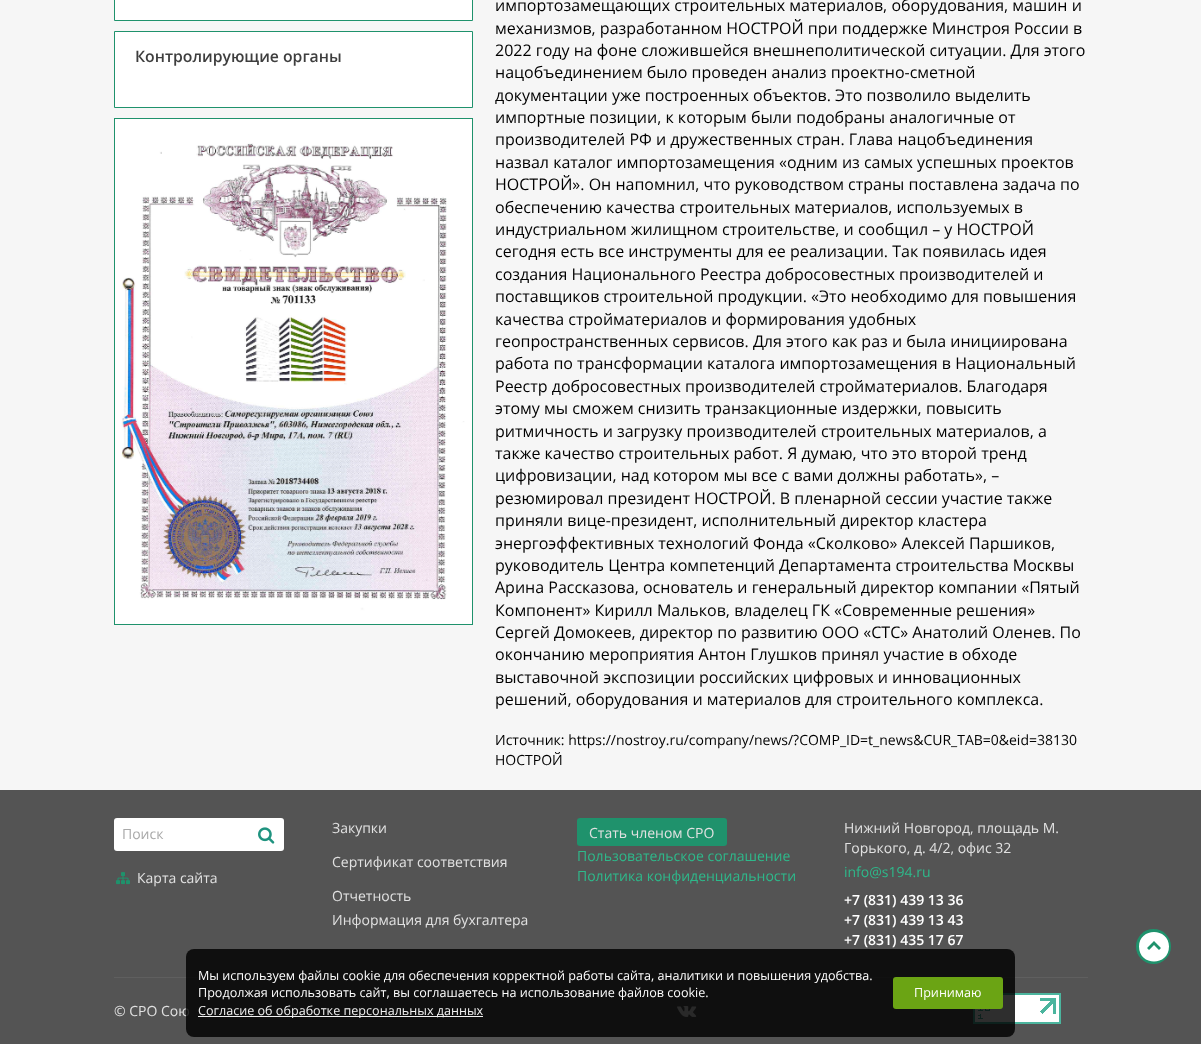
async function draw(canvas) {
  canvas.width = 1201
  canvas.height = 1044
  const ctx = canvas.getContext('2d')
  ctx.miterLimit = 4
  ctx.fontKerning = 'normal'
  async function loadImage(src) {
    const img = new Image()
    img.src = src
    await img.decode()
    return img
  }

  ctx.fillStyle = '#545454'
  ctx.fillRect(0, 0, 1201, 1044)
  ctx.fillStyle = '#f6f6f6'
  ctx.fillRect(0, 0, 1201, 790)
  ctx.fillStyle = '#fff'
  ctx.beginPath()
  ctx.rect(114.5, -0.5, 358, 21)
  ctx.fill()
  ctx.strokeStyle = '#1f926c'
  ctx.stroke()
  ctx.beginPath()
  ctx.rect(114.5, 31.5, 358, 76)
  ctx.fill()
  ctx.stroke()
  ctx.font = '600 15.75px Open Sans'
  ctx.fillStyle = '#3e3e3e'
  ctx.fillText('Контролирующие органы', 135, 62)
  ctx.strokeRect(114.5, 118.5, 358, 506)
  ctx.drawImage(await loadImage('image0.png'), 115, 119, 357, 505)
  ctx.font = '16px Open Sans'
  ctx.fillStyle = '#000'
  ctx.fillText('импортозамещающих строительных материалов, оборудования, машин и', 495, 11)
  ctx.fillText('механизмов, разработанном НОСТРОЙ при поддержке Минстроя России в', 495, 34)
  ctx.fillText('2022 году на фоне сложившейся внешнеполитической ситуации. Для этого', 495, 56)
  ctx.fillText('нацобъединением было проведен анализ проектно-сметной', 495, 78)
  ctx.fillText('документации уже построенных объектов. Это позволило выделить', 495, 101)
  ctx.fillText('импортные позиции, к которым были подобраны аналогичные от', 495, 123)
  ctx.fillText('производителей РФ и дружественных стран. Глава нацобъединения', 495, 145)
  ctx.fillText('назвал каталог импортозамещения «одним из самых успешных проектов', 495, 168)
  ctx.fillText('НОСТРОЙ». Он напомнил, что руководством страны поставлена задача по', 495, 190)
  ctx.fillText('обеспечению качества строительных материалов, используемых в', 495, 213)
  ctx.fillText('индустриальном жилищном строительстве, и сообщил – у НОСТРОЙ', 495, 235)
  ctx.fillText('сегодня есть все инструменты для ее реализации. Так появилась идея', 495, 257)
  ctx.fillText('создания Национального Реестра добросовестных производителей и', 495, 280)
  ctx.fillText('поставщиков строительной продукции. «Это необходимо для повышения', 495, 302)
  ctx.fillText('качества стройматериалов и формирования удобных', 495, 325)
  ctx.fillText('геопространственных сервисов. Для этого как раз и была инициирована', 495, 347)
  ctx.fillText('работа по трансформации каталога импортозамещения в Национальный', 495, 369)
  ctx.fillText('Реестр добросовестных производителей стройматериалов. Благодаря', 495, 392)
  ctx.fillText('этому мы сможем снизить транзакционные издержки, повысить', 495, 414)
  ctx.fillText('ритмичность и загрузку производителей строительных материалов, а', 495, 437)
  ctx.fillText('также качество строительных работ. Я думаю, что это второй тренд', 495, 459)
  ctx.fillText('цифровизации, над котором мы все с вами должны работать», –', 495, 481)
  ctx.fillText('резюмировал президент НОСТРОЙ. В пленарной сессии участие также', 495, 504)
  ctx.fillText('приняли вице-президент, исполнительный директор кластера', 495, 526)
  ctx.fillText('энергоэффективных технологий Фонда «Сколково» Алексей Паршиков,', 495, 549)
  ctx.fillText('руководитель Центра компетенций Департамента строительства Москвы', 495, 571)
  ctx.fillText('Арина Рассказова, основатель и генеральный директор компании «Пятый', 495, 593)
  ctx.fillText('Компонент» Кирилл Мальков, владелец ГК «Современные решения»', 495, 616)
  ctx.fillText('Сергей Домокеев, директор по развитию ООО «СТС» Анатолий Оленев. По', 495, 638)
  ctx.fillText('окончанию мероприятия Антон Глушков принял участие в обходе', 495, 660)
  ctx.fillText('выставочной экспозиции российских цифровых и инновационных', 495, 683)
  ctx.fillText('решений, оборудования и материалов для строительного комплекса.', 495, 705)
  ctx.font = '14px Open Sans'
  ctx.fillText('Источник: https://nostroy.ru/company/news/?COMP_ID=t_news&CUR_TAB=0&eid=38130', 495, 745)
  ctx.fillText('НОСТРОЙ', 495, 765)
  ctx.fillStyle = '#fff'
  ctx.beginPath()
  ctx.roundRect(114, 818, 170, 33, 3)
  ctx.fill()
  ctx.fillStyle = '#a9a9a9'
  ctx.fillText('Поиск', 122, 839)
  ctx.drawImage(await loadImage('image1.png'), 258, 827, 17, 17)
  ctx.drawImage(await loadImage('image2.png'), 116, 872, 14, 13)
  ctx.fillStyle = '#e1e1e1'
  ctx.fillText('Карта сайта', 137, 883)
  ctx.fillText('Закупки', 332, 833)
  ctx.fillText('Сертификат соответствия', 332, 867)
  ctx.fillText('Отчетность', 332, 901)
  ctx.fillText('Информация для бухгалтера', 332, 925)
  ctx.fillStyle = '#1f926c'
  ctx.beginPath()
  ctx.roundRect(577, 818, 150, 28, 3)
  ctx.fill()
  ctx.fillStyle = '#e1e1e1'
  ctx.fillText('Стать членом СРО', 589, 838)
  ctx.fillStyle = '#2eb98b'
  ctx.fillText('Пользовательское соглашение', 577, 861)
  ctx.fillText('Политика конфиденциальности', 577, 881)
  ctx.fillStyle = '#e1e1e1'
  ctx.fillText('Нижний Новгород, площадь М.', 844, 833)
  ctx.fillText('Горького, д. 4/2, офис 32', 844, 853)
  ctx.fillStyle = '#2eb98b'
  ctx.fillText('info@s194.ru', 844, 877)
  ctx.font = '600 14px Open Sans'
  ctx.fillStyle = '#fff'
  ctx.fillText('+7 (831) 439 13 36', 844, 905)
  ctx.fillText('+7 (831) 439 13 43', 844, 925)
  ctx.fillText('+7 (831) 435 17 67', 844, 945)
  ctx.fillStyle = '#5f5f5f'
  ctx.fillRect(114, 977, 974, 1)
  ctx.font = '14px Open Sans'
  ctx.fillStyle = '#e1e1e1'
  ctx.fillText('© СРО Сою', 114, 1016)
  ctx.drawImage(await loadImage('image3.png'), 677, 1006, 20, 11)
  ctx.drawImage(await loadImage('image4.png'), 973, 993, 88, 31)
  ctx.fillStyle = '#1f926c'
  ctx.beginPath()
  ctx.arc(1153.5, 946.5, 17.5, 0, 2 * Math.PI)
  ctx.fill()
  ctx.fillStyle = '#fff'
  ctx.beginPath()
  ctx.moveTo(1169, 946.5)
  ctx.bezierCurveTo(1169, 966.5, 1139, 966.5, 1139, 946.5)
  ctx.bezierCurveTo(1139, 927, 1169, 927, 1169, 946.5)
  ctx.closePath()
  ctx.moveTo(1159, 950)
  ctx.lineTo(1161, 948)
  ctx.lineTo(1154, 941)
  ctx.lineTo(1147, 948)
  ctx.lineTo(1149, 950)
  ctx.lineTo(1154, 945)
  ctx.closePath()
  ctx.fill()
  ctx.fillStyle = '#000000d1'
  ctx.beginPath()
  ctx.roundRect(186, 949, 829, 88, 8)
  ctx.fill()
  ctx.font = '12.6px Open Sans'
  ctx.fillStyle = '#fff'
  ctx.fillText('Мы используем файлы cookie для обеспечения корректной работы сайта, аналитики и повышения удобства.', 198, 980)
  ctx.fillText('Продолжая использовать сайт, вы соглашаетесь на использование файлов cookie.', 198, 997)
  ctx.fillStyle = '#f1f1f1'
  ctx.fillRect(198, 1016, 285, 1)
  ctx.fillText('Согласие об обработке персональных данных', 198, 1015)
  ctx.fillStyle = '#6ba414'
  ctx.beginPath()
  ctx.roundRect(893, 977, 110, 32, 3)
  ctx.fill()
  ctx.fillStyle = '#fff'
  ctx.fillText('Принимаю', 914, 997)
}

draw(document.querySelector('canvas'))
